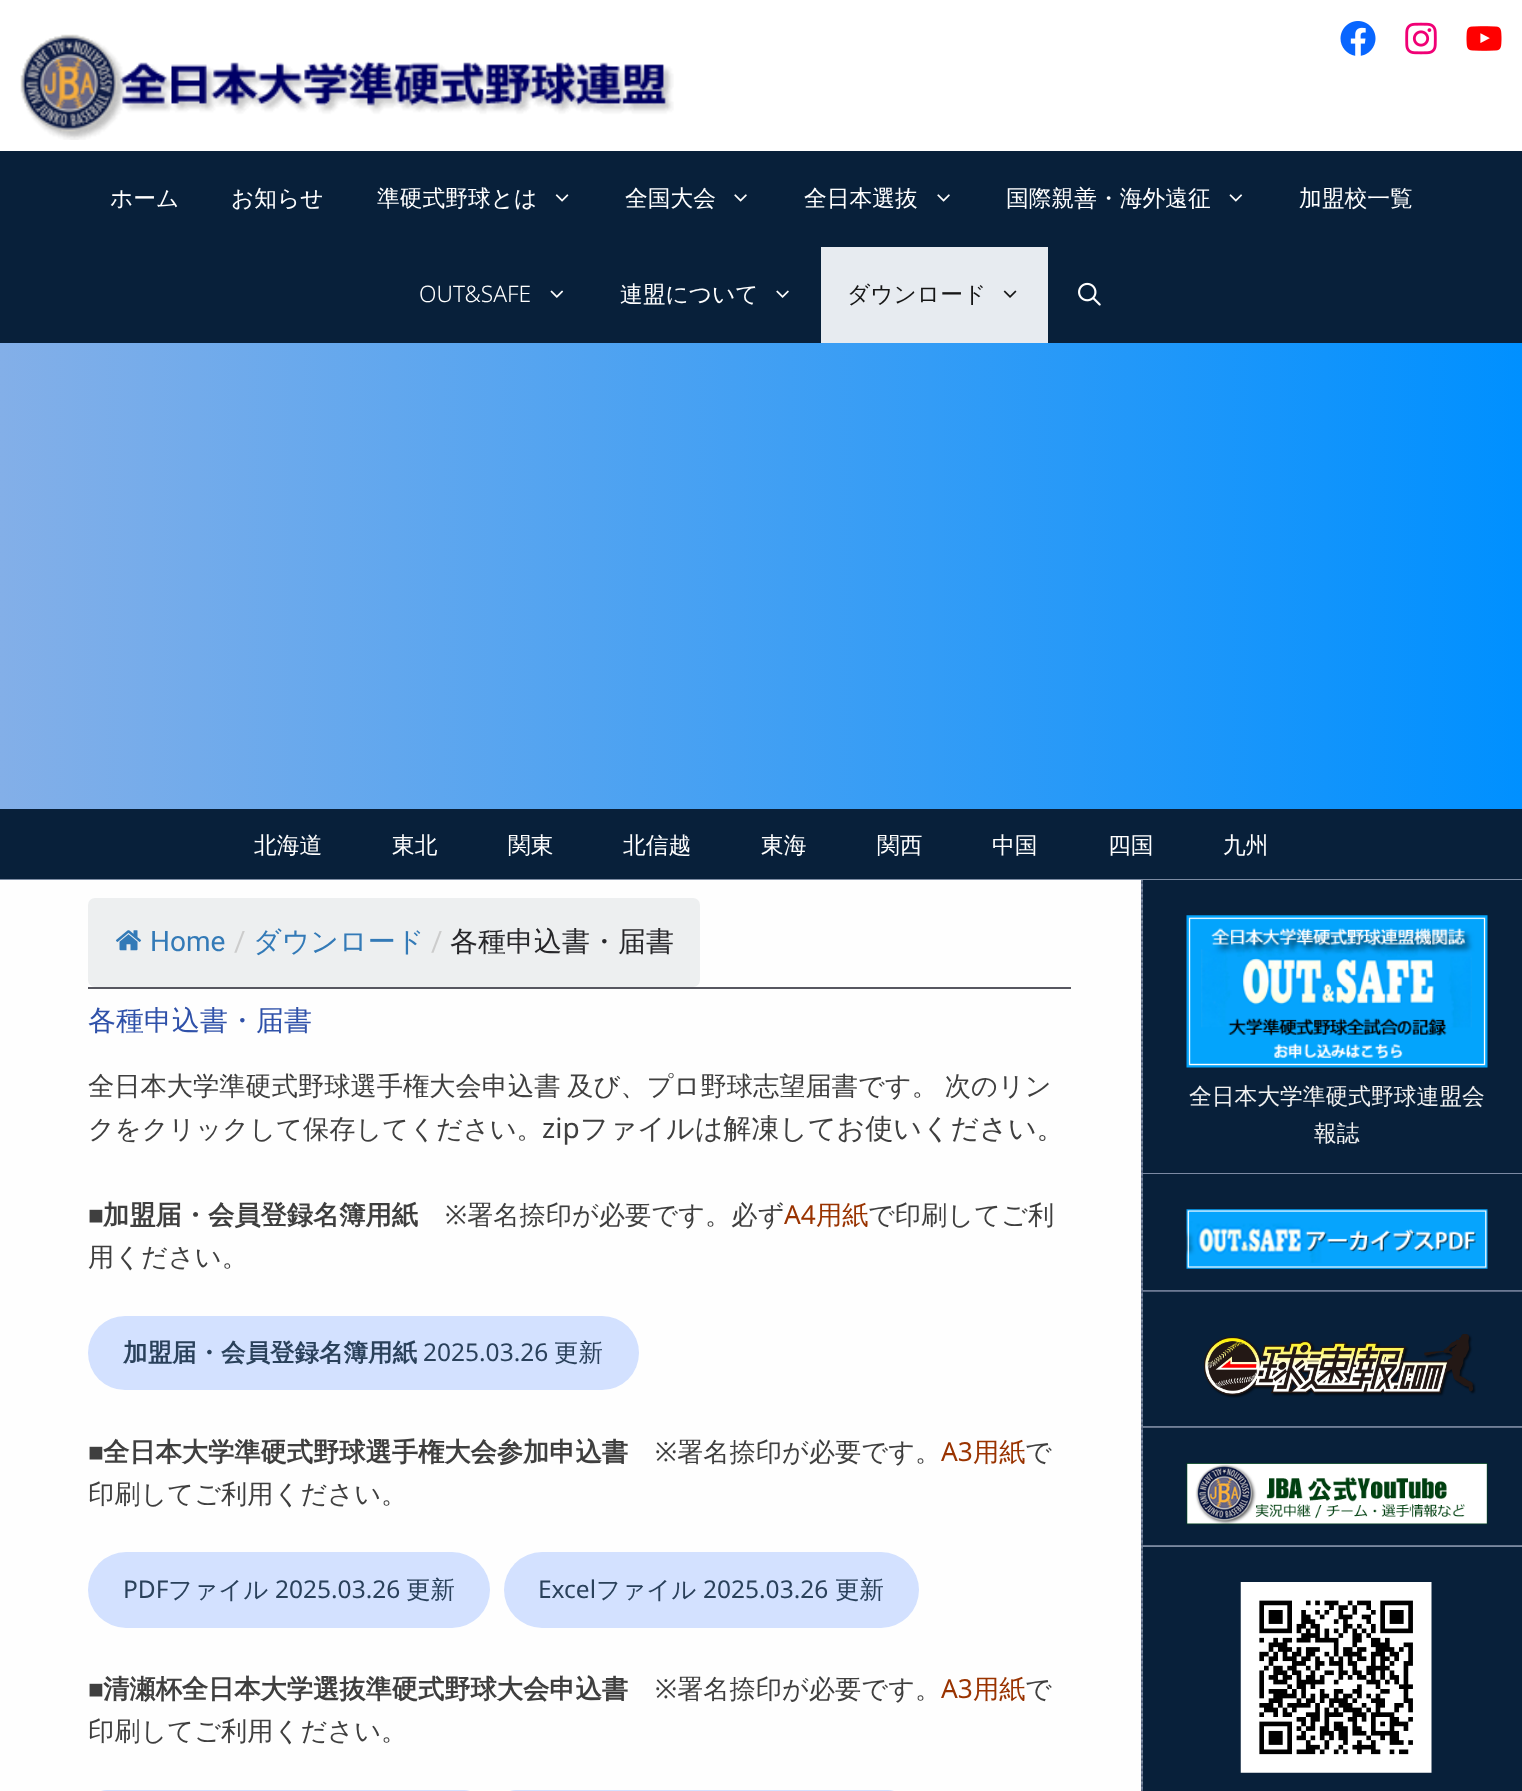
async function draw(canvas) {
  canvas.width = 1522
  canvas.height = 1791
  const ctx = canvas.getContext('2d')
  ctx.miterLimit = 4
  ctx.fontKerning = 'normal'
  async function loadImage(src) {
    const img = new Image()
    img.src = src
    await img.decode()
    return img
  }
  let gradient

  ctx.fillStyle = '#fff'
  ctx.fillRect(0, 0, 1522, 1791)
  ctx.drawImage(await loadImage('image0.png'), 0, 879, 1522, 912)
  ctx.drawImage(await loadImage('image1.png'), 20, 34, 654, 106)
  ctx.drawImage(await loadImage('image2.png'), 1340, 21, 36, 35)
  ctx.drawImage(await loadImage('image3.png'), 1405, 22, 32, 33)
  ctx.drawImage(await loadImage('image4.png'), 1466, 26, 36, 25)
  ctx.fillStyle = '#08203a'
  ctx.fillRect(0, 151, 1522, 192)
  ctx.font = '500 22.75px WenQuanYi Zen Hei'
  ctx.fillStyle = '#fff'
  ctx.fillText('ホーム', 110, 206)
  ctx.fillText('お知らせ', 231, 206)
  ctx.fillText('準硬式野球とは', 377, 206)
  ctx.drawImage(await loadImage('image5.png'), 555, 194, 14, 8)
  ctx.fillText('全国大会', 625, 206)
  ctx.drawImage(await loadImage('image6.png'), 734, 194, 13, 8)
  ctx.fillText('全日本選抜', 804, 206)
  ctx.drawImage(await loadImage('image6.png'), 937, 194, 13, 8)
  ctx.fillText('国際親善・海外遠征', 1006, 206)
  ctx.drawImage(await loadImage('image7.png'), 1229, 194, 14, 8)
  ctx.fillText('加盟校一覧', 1299, 206)
  ctx.font = '300 22.75px Noto Sans'
  ctx.fillText('OUT&SAFE', 419, 302)
  ctx.drawImage(await loadImage('image8.png'), 550, 290, 14, 8)
  ctx.font = '500 22.75px WenQuanYi Zen Hei'
  ctx.fillText('連盟について', 620, 302)
  ctx.drawImage(await loadImage('image9.png'), 776, 290, 13, 8)
  ctx.fillStyle = '#e7ebf0'
  ctx.fillRect(821, 247, 227, 96)
  ctx.fillStyle = '#161616'
  ctx.fillText('ダウンロード', 847, 302)
  ctx.drawImage(await loadImage('image10.png'), 1003, 290, 14, 8)
  ctx.drawImage(await loadImage('image11.png'), 1078, 282, 23, 24)
  gradient = ctx.createLinearGradient(0, 593, 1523, 593)
  gradient.addColorStop(0, '#83afe8')
  gradient.addColorStop(1, '#0090ff')
  ctx.fillStyle = gradient
  ctx.fillRect(0, 343, 1522, 466)
  ctx.fillStyle = '#08203a'
  ctx.fillRect(0, 809, 1522, 70)
  ctx.fillStyle = '#fff'
  ctx.fillText('北海道', 254, 853)
  ctx.fillText('東北', 392, 853)
  ctx.fillText('関東', 508, 853)
  ctx.fillText('北信越', 623, 853)
  ctx.fillText('東海', 761, 853)
  ctx.fillText('関西', 877, 853)
  ctx.fillText('中国', 992, 853)
  ctx.fillText('四国', 1108, 853)
  ctx.fillText('九州', 1223, 853)
  ctx.fillStyle = '#fefefe'
  ctx.fillRect(0, 880, 1141, 911)
  ctx.fillStyle = '#575760'
  ctx.fillRect(88, 987, 983, 2)
  ctx.fillStyle = '#edeff0'
  ctx.beginPath()
  ctx.roundRect(88, 898, 612, 89, 7)
  ctx.fill()
  ctx.drawImage(await loadImage('image12.png'), 115, 930, 27, 21)
  ctx.font = '28px Roboto'
  ctx.fillStyle = '#337ab7'
  ctx.fillText('Home', 150, 951)
  ctx.fillStyle = '#ccc'
  ctx.fillText('/', 234, 951)
  ctx.font = '500 28px WenQuanYi Zen Hei'
  ctx.fillStyle = '#337ab7'
  ctx.fillText('ダウンロード', 253, 951)
  ctx.font = '28px Roboto'
  ctx.fillStyle = '#ccc'
  ctx.fillText('/', 431, 951)
  ctx.font = '500 28px WenQuanYi Zen Hei'
  ctx.fillStyle = '#27272a'
  ctx.fillText('各種申込書・届書', 450, 951)
  ctx.fillStyle = '#2f51a9'
  ctx.fillText('各種申込書・届書', 88, 1030)
  ctx.wordSpacing = '-1px'
  ctx.font = '500 26.25px WenQuanYi Zen Hei'
  ctx.fillStyle = '#3f3f3f'
  ctx.fillText('全日本大学準硬式野球選手権大会申込書 及び、プロ野球志望届書です。 次のリン', 88, 1095)
  ctx.wordSpacing = '0px'
  ctx.fillText('クをクリックして保存してください。', 88, 1138)
  ctx.font = '28px Noto Sans'
  ctx.fillText('zip', 542, 1138)
  ctx.font = '500 28px WenQuanYi Zen Hei'
  ctx.fillText('ファイルは解凍してお使いください。', 580, 1138)
  ctx.font = '26.25px Liberation Sans'
  ctx.fillText('■', 88, 1224)
  ctx.font = 'bold 26.25px WenQuanYi Zen Hei'
  ctx.fillText('加盟届・会員登録名簿用紙', 103, 1224)
  ctx.font = '26.25px Noto Sans'
  ctx.fillText('※', 445, 1224)
  ctx.font = '500 26.25px WenQuanYi Zen Hei'
  ctx.fillText('署名捺印が必要です。必ず', 467, 1224)
  ctx.font = '26.25px Noto Sans'
  ctx.fillStyle = '#930'
  ctx.fillText('A4', 784, 1224)
  ctx.font = '500 26.25px WenQuanYi Zen Hei'
  ctx.fillText('用紙', 816, 1224)
  ctx.fillStyle = '#3f3f3f'
  ctx.fillText('で印刷してご利', 868, 1224)
  ctx.fillText('用ください。', 88, 1266)
  ctx.fillStyle = '#d3e1ff'
  ctx.beginPath()
  ctx.roundRect(88, 1316, 551, 74, 37)
  ctx.fill()
  ctx.font = 'bold 24.5px WenQuanYi Zen Hei'
  ctx.fillStyle = '#2a415b'
  ctx.fillText('加盟届・会員登録名簿用紙', 123, 1361)
  ctx.font = '24.5px Noto Sans'
  ctx.fillText('2025.03.26', 423, 1361)
  ctx.font = '500 24.5px WenQuanYi Zen Hei'
  ctx.fillText('更新', 554, 1361)
  ctx.font = '26.25px Liberation Sans'
  ctx.fillStyle = '#3f3f3f'
  ctx.fillText('■', 88, 1461)
  ctx.font = 'bold 26.25px WenQuanYi Zen Hei'
  ctx.fillText('全日本大学準硬式野球選手権大会参加申込書', 103, 1461)
  ctx.font = '26.25px Noto Sans'
  ctx.fillText('※', 655, 1461)
  ctx.font = '500 26.25px WenQuanYi Zen Hei'
  ctx.fillText('署名捺印が必要です。', 677, 1461)
  ctx.font = '26.25px Noto Sans'
  ctx.fillStyle = '#930'
  ctx.fillText('A3', 941, 1461)
  ctx.font = '500 26.25px WenQuanYi Zen Hei'
  ctx.fillText('用紙', 973, 1461)
  ctx.fillStyle = '#3f3f3f'
  ctx.fillText('で', 1025, 1461)
  ctx.fillText('印刷してご利用ください。', 88, 1503)
  ctx.fillStyle = '#d3e1ff'
  ctx.beginPath()
  ctx.roundRect(88, 1552, 402, 76, 38)
  ctx.fill()
  ctx.font = '24.5px Noto Sans'
  ctx.fillStyle = '#2a415b'
  ctx.fillText('PDF', 123, 1598)
  ctx.font = '500 24.5px WenQuanYi Zen Hei'
  ctx.fillText('ファイル', 168, 1598)
  ctx.font = '24.5px Noto Sans'
  ctx.fillText('2025.03.26', 275, 1598)
  ctx.font = '500 24.5px WenQuanYi Zen Hei'
  ctx.fillText('更新', 406, 1598)
  ctx.fillStyle = '#d3e1ff'
  ctx.beginPath()
  ctx.roundRect(504, 1552, 415, 76, 38)
  ctx.fill()
  ctx.font = '24.5px Noto Sans'
  ctx.fillStyle = '#2a415b'
  ctx.fillText('Excel', 538, 1598)
  ctx.font = '500 24.5px WenQuanYi Zen Hei'
  ctx.fillText('ファイル', 596, 1598)
  ctx.font = '24.5px Noto Sans'
  ctx.fillText('2025.03.26', 703, 1598)
  ctx.font = '500 24.5px WenQuanYi Zen Hei'
  ctx.fillText('更新', 835, 1598)
  ctx.font = '26.25px Liberation Sans'
  ctx.fillStyle = '#3f3f3f'
  ctx.fillText('■', 88, 1698)
  ctx.font = 'bold 26.25px WenQuanYi Zen Hei'
  ctx.fillText('清瀬杯全日本大学選抜準硬式野球大会申込書', 103, 1698)
  ctx.font = '26.25px Noto Sans'
  ctx.fillText('※', 655, 1698)
  ctx.font = '500 26.25px WenQuanYi Zen Hei'
  ctx.fillText('署名捺印が必要です。', 677, 1698)
  ctx.font = '26.25px Noto Sans'
  ctx.fillStyle = '#930'
  ctx.fillText('A3', 941, 1698)
  ctx.font = '500 26.25px WenQuanYi Zen Hei'
  ctx.fillText('用紙', 973, 1698)
  ctx.fillStyle = '#3f3f3f'
  ctx.fillText('で', 1025, 1698)
  ctx.fillText('印刷してご利用ください。', 88, 1740)
  ctx.fillStyle = '#d3e1ff'
  ctx.beginPath()
  ctx.roundRect(88, 1790, 395, 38, 37)
  ctx.fill()
  ctx.beginPath()
  ctx.roundRect(497, 1790, 410, 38, 37)
  ctx.fill()
  ctx.fillStyle = '#08203a'
  ctx.fillRect(1143, 880, 379, 293)
  ctx.drawImage(await loadImage('image13.png'), 1186, 915, 302, 153)
  ctx.font = '500 22.75px WenQuanYi Zen Hei'
  ctx.fillStyle = '#f0f0f0'
  ctx.fillText('全日本大学準硬式野球連盟会', 1189, 1104)
  ctx.fillText('報誌', 1314, 1141)
  ctx.fillStyle = '#08203a'
  ctx.fillRect(1143, 1174, 379, 116)
  ctx.drawImage(await loadImage('image14.png'), 1186, 1209, 302, 60)
  ctx.fillRect(1143, 1292, 379, 134)
  ctx.drawImage(await loadImage('image15.png'), 1204, 1334, 272, 64)
  ctx.fillRect(1143, 1428, 379, 117)
  ctx.drawImage(await loadImage('image16.png'), 1186, 1463, 302, 62)
  ctx.fillRect(1143, 1547, 379, 244)
  ctx.drawImage(await loadImage('image17.png'), 1240, 1582, 192, 191)
}

draw(document.querySelector('canvas'))
